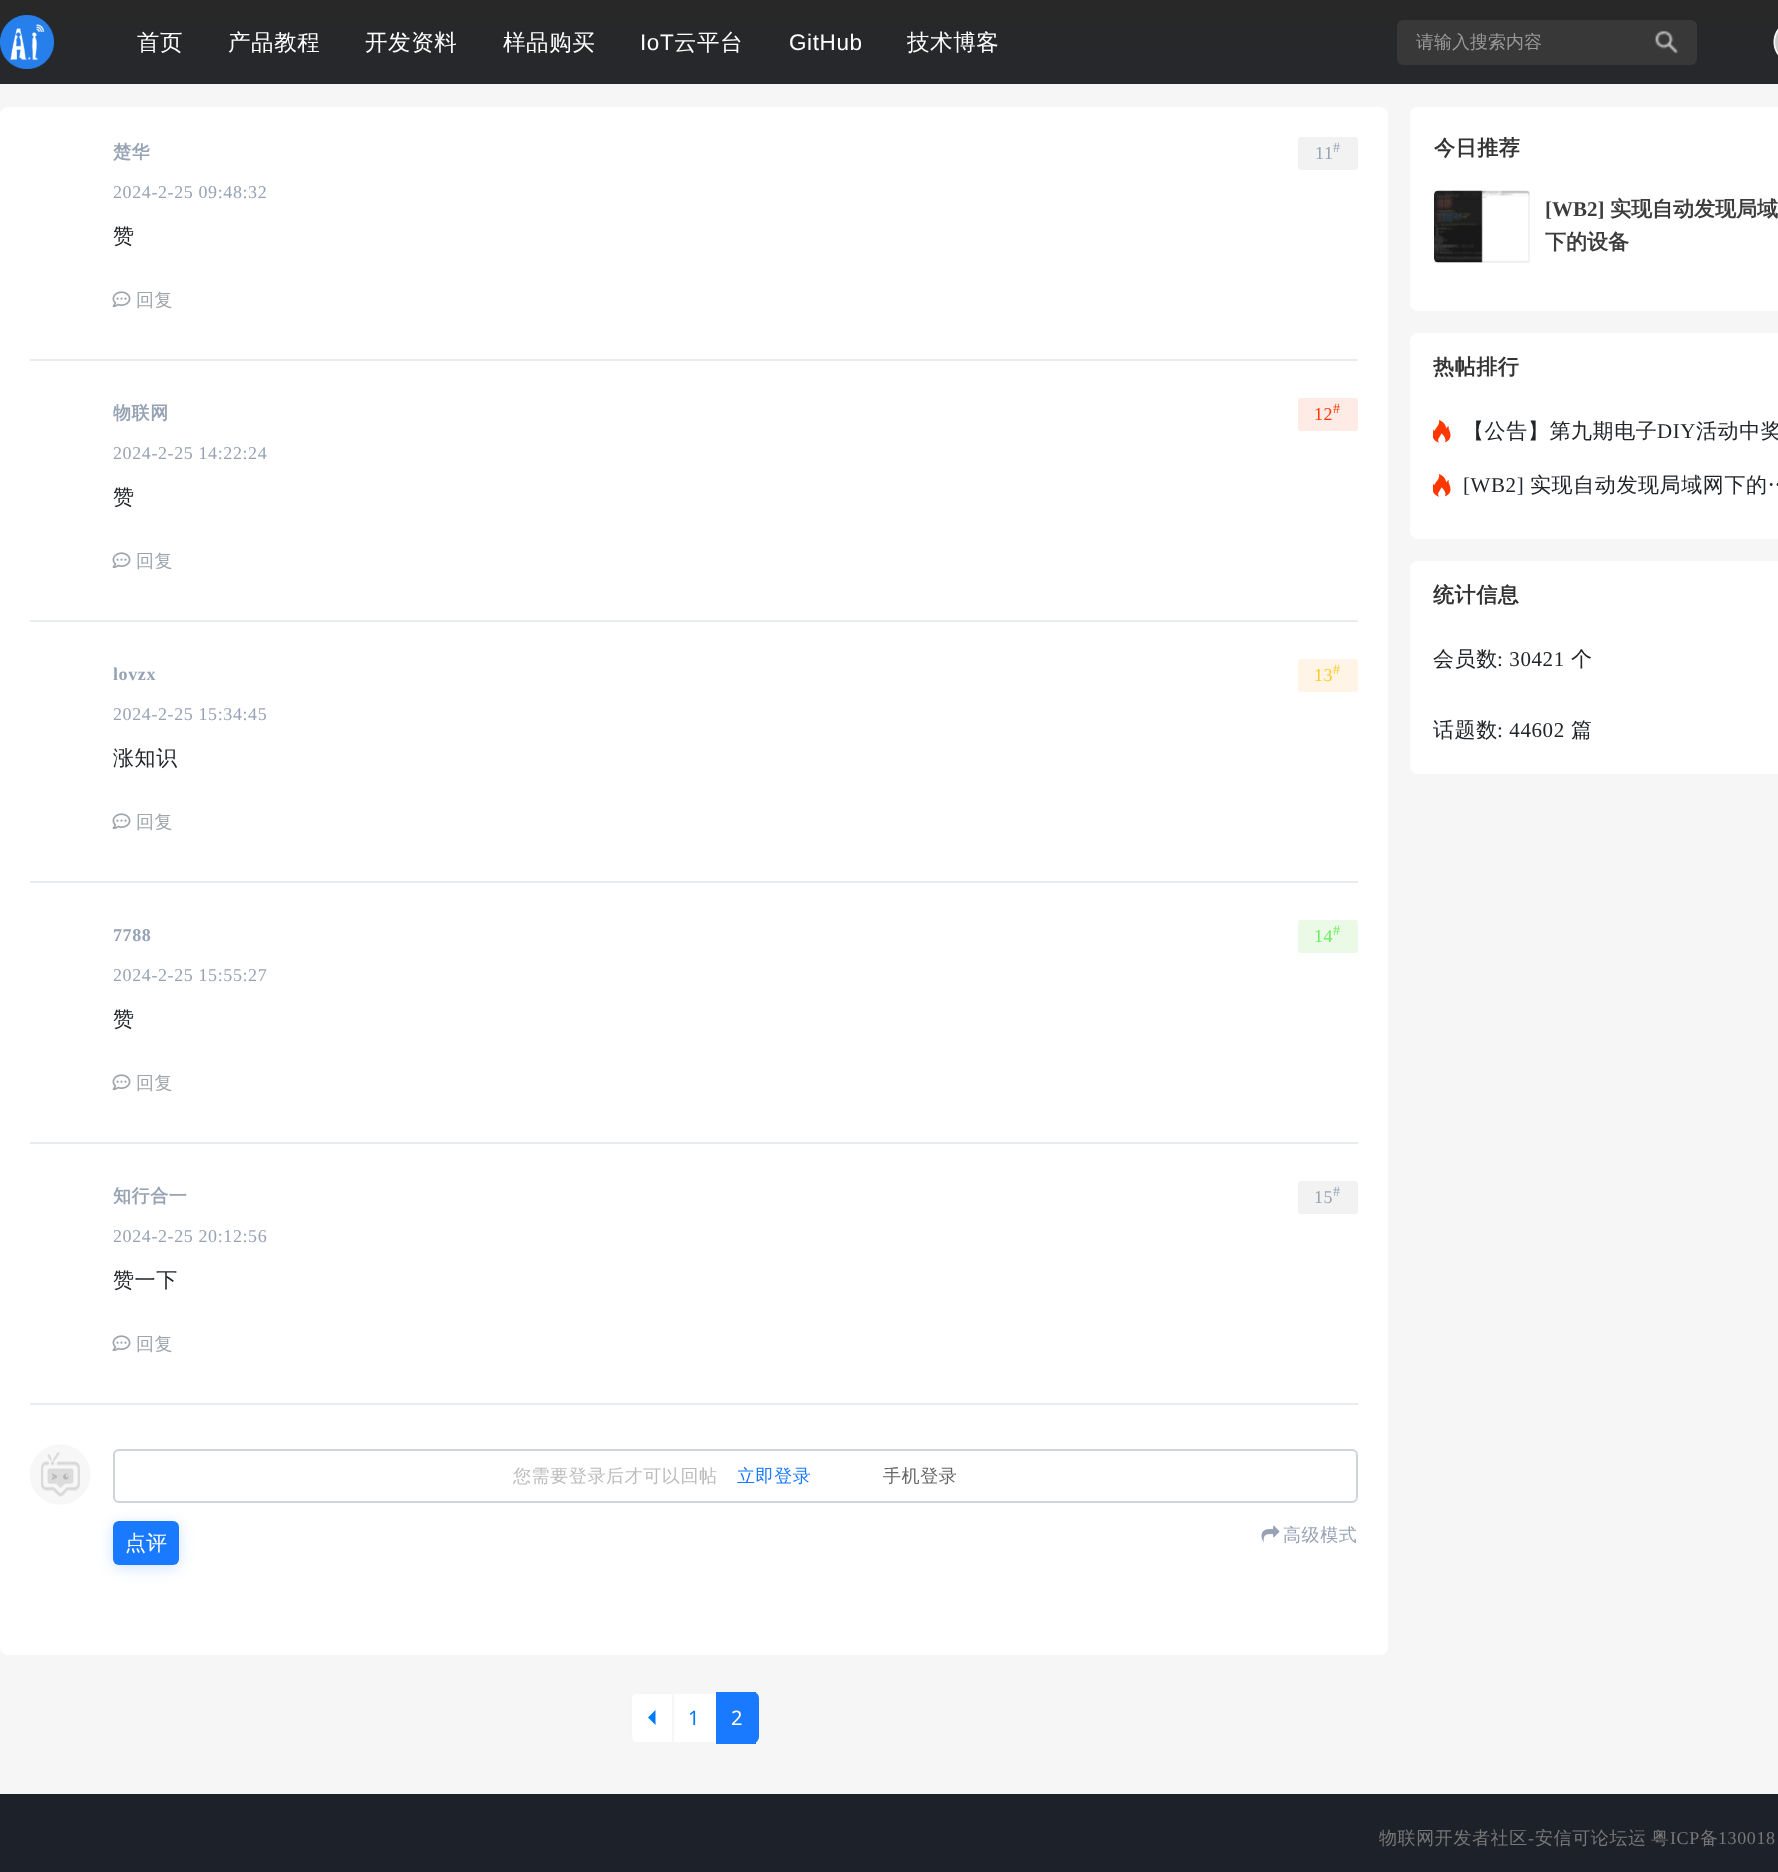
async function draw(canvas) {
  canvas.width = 1778
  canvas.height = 1872
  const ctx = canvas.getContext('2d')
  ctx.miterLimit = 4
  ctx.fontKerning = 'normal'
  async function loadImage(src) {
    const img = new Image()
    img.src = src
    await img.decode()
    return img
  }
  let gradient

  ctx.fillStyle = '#f6f6f6'
  ctx.fillRect(0, 0, 1778, 1872)
  gradient = ctx.createLinearGradient(915, 0, 915, 84)
  gradient.addColorStop(0, '#282828')
  gradient.addColorStop(1, '#26282c')
  ctx.fillStyle = gradient
  ctx.fillRect(0, 0, 1778, 84)
  ctx.drawImage(await loadImage('image0.png'), 0, 15, 54, 54)
  ctx.letterSpacing = '0.6px'
  ctx.font = '500 22.5px WenQuanYi Zen Hei'
  ctx.fillStyle = '#fff'
  ctx.fillText('首页', 137, 50)
  ctx.fillText('产品教程', 228, 50)
  ctx.fillText('开发资料', 365, 50)
  ctx.fillText('样品购买', 503, 50)
  ctx.font = '22.5px Liberation Sans'
  ctx.fillText('IoT', 640, 50)
  ctx.font = '500 22.5px WenQuanYi Zen Hei'
  ctx.fillText('云平台', 674, 50)
  ctx.font = '22.5px Liberation Sans'
  ctx.fillText('GitHub', 789, 50)
  ctx.font = '500 22.5px WenQuanYi Zen Hei'
  ctx.fillText('技术博客', 907, 50)
  ctx.fillStyle = '#383838'
  ctx.beginPath()
  ctx.roundRect(1397, 20, 300, 45, 6)
  ctx.fill()
  ctx.letterSpacing = '0px'
  ctx.font = '500 18px WenQuanYi Zen Hei'
  ctx.fillStyle = '#999'
  ctx.fillText('请输入搜索内容', 1416, 48)
  ctx.drawImage(await loadImage('image1.png'), 1654, 30, 24, 24)
  ctx.drawImage(await loadImage('image2.png'), 1773, 28, 5, 28)
  ctx.fillStyle = '#fff'
  ctx.beginPath()
  ctx.roundRect(0, 107, 1388, 276, [8, 8, 0, 0])
  ctx.fill()
  ctx.letterSpacing = '0.6px'
  ctx.font = 'bold 18px WenQuanYi Zen Hei'
  ctx.fillStyle = '#97a3b4'
  ctx.fillText('楚华', 113, 158)
  ctx.font = '18px Liberation Serif'
  ctx.fillText('2024-2-25 09:48:32', 113, 198)
  ctx.fillStyle = '#f2f2f2'
  ctx.beginPath()
  ctx.roundRect(1298, 137, 60, 33, 3)
  ctx.fill()
  ctx.fillStyle = '#97a3b4'
  ctx.fillText('11', 1315, 159)
  ctx.font = '14px Liberation Serif'
  ctx.fillText('#', 1333, 152)
  ctx.fillStyle = '#e9ecef'
  ctx.fillRect(30, 359, 1328, 2)
  ctx.font = '500 21px WenQuanYi Zen Hei'
  ctx.fillStyle = '#212529'
  ctx.fillText('赞', 113, 243)
  ctx.drawImage(await loadImage('image3.png'), 112, 291, 19, 17)
  ctx.font = '500 18px WenQuanYi Zen Hei'
  ctx.fillStyle = '#9ea5ab'
  ctx.fillText('回复', 136, 306)
  ctx.fillStyle = '#fff'
  ctx.beginPath()
  ctx.roundRect(0, 368, 1388, 276, [8, 8, 0, 0])
  ctx.fill()
  ctx.save()
  ctx.beginPath()
  ctx.rect(113, 398, 154, 84)
  ctx.clip()
  ctx.font = 'bold 18px WenQuanYi Zen Hei'
  ctx.fillStyle = '#97a3b4'
  ctx.fillText('物联网', 113, 419)
  ctx.restore()
  ctx.font = '18px Liberation Serif'
  ctx.fillStyle = '#97a3b4'
  ctx.fillText('2024-2-25 14:22:24', 113, 459)
  ctx.fillStyle = '#ffebe5'
  ctx.beginPath()
  ctx.roundRect(1298, 398, 60, 33, 3)
  ctx.fill()
  ctx.fillStyle = '#ff3700'
  ctx.fillText('12', 1314, 420)
  ctx.font = '14px Liberation Serif'
  ctx.fillText('#', 1333, 413)
  ctx.fillStyle = '#e9ecef'
  ctx.fillRect(30, 620, 1328, 2)
  ctx.font = '500 21px WenQuanYi Zen Hei'
  ctx.fillStyle = '#212529'
  ctx.fillText('赞', 113, 504)
  ctx.drawImage(await loadImage('image3.png'), 112, 552, 19, 17)
  ctx.font = '500 18px WenQuanYi Zen Hei'
  ctx.fillStyle = '#9ea5ab'
  ctx.fillText('回复', 136, 567)
  ctx.fillStyle = '#fff'
  ctx.beginPath()
  ctx.roundRect(0, 629, 1388, 276, [8, 8, 0, 0])
  ctx.fill()
  ctx.font = 'bold 18px Liberation Serif'
  ctx.fillStyle = '#97a3b4'
  ctx.fillText('lovzx', 113, 680)
  ctx.font = '18px Liberation Serif'
  ctx.fillText('2024-2-25 15:34:45', 113, 720)
  ctx.fillStyle = '#fff4e5'
  ctx.beginPath()
  ctx.roundRect(1298, 659, 60, 33, 3)
  ctx.fill()
  ctx.fillStyle = '#ffca25'
  ctx.fillText('13', 1314, 681)
  ctx.font = '14px Liberation Serif'
  ctx.fillText('#', 1333, 674)
  ctx.fillStyle = '#e9ecef'
  ctx.fillRect(30, 881, 1328, 2)
  ctx.font = '500 21px WenQuanYi Zen Hei'
  ctx.fillStyle = '#212529'
  ctx.fillText('涨知识', 113, 765)
  ctx.drawImage(await loadImage('image3.png'), 112, 813, 19, 17)
  ctx.font = '500 18px WenQuanYi Zen Hei'
  ctx.fillStyle = '#9ea5ab'
  ctx.fillText('回复', 136, 828)
  ctx.fillStyle = '#fff'
  ctx.beginPath()
  ctx.roundRect(0, 890, 1388, 276, [8, 8, 0, 0])
  ctx.fill()
  ctx.font = 'bold 18px Liberation Serif'
  ctx.fillStyle = '#97a3b4'
  ctx.fillText('7788', 113, 941)
  ctx.font = '18px Liberation Serif'
  ctx.fillText('2024-2-25 15:55:27', 113, 981)
  ctx.fillStyle = '#ebf9e7'
  ctx.beginPath()
  ctx.roundRect(1298, 920, 60, 33, 3)
  ctx.fill()
  ctx.fillStyle = '#69ee5e'
  ctx.fillText('14', 1314, 942)
  ctx.font = '14px Liberation Serif'
  ctx.fillText('#', 1333, 935)
  ctx.fillStyle = '#e9ecef'
  ctx.fillRect(30, 1142, 1328, 2)
  ctx.font = '500 21px WenQuanYi Zen Hei'
  ctx.fillStyle = '#212529'
  ctx.fillText('赞', 113, 1026)
  ctx.drawImage(await loadImage('image3.png'), 112, 1074, 19, 17)
  ctx.font = '500 18px WenQuanYi Zen Hei'
  ctx.fillStyle = '#9ea5ab'
  ctx.fillText('回复', 136, 1089)
  ctx.fillStyle = '#fff'
  ctx.beginPath()
  ctx.roundRect(0, 1151, 1388, 276, [8, 8, 0, 0])
  ctx.fill()
  ctx.font = 'bold 18px WenQuanYi Zen Hei'
  ctx.fillStyle = '#97a3b4'
  ctx.fillText('知行合一', 113, 1202)
  ctx.font = '18px Liberation Serif'
  ctx.fillText('2024-2-25 20:12:56', 113, 1242)
  ctx.fillStyle = '#f2f2f2'
  ctx.beginPath()
  ctx.roundRect(1298, 1181, 60, 33, 3)
  ctx.fill()
  ctx.fillStyle = '#97a3b4'
  ctx.fillText('15', 1314, 1203)
  ctx.font = '14px Liberation Serif'
  ctx.fillText('#', 1333, 1196)
  ctx.fillStyle = '#e9ecef'
  ctx.fillRect(30, 1403, 1328, 2)
  ctx.font = '500 21px WenQuanYi Zen Hei'
  ctx.fillStyle = '#212529'
  ctx.fillText('赞一下', 113, 1287)
  ctx.drawImage(await loadImage('image3.png'), 112, 1335, 19, 17)
  ctx.font = '500 18px WenQuanYi Zen Hei'
  ctx.fillStyle = '#9ea5ab'
  ctx.fillText('回复', 136, 1350)
  ctx.fillStyle = '#fff'
  ctx.beginPath()
  ctx.roundRect(0, 1412, 1388, 243, [0, 0, 8, 8])
  ctx.fill()
  ctx.drawImage(await loadImage('image4.png'), 30, 1444, 60, 61)
  ctx.beginPath()
  ctx.roundRect(114, 1450, 1243, 52, 5)
  ctx.strokeStyle = '#ced4da'
  ctx.lineWidth = 2
  ctx.stroke()
  ctx.fillStyle = '#bbb'
  ctx.fillText('您需要登录后才可以回帖', 513, 1482)
  ctx.fillStyle = '#1979ff'
  ctx.fillText('立即登录', 737, 1482)
  ctx.fillStyle = '#666'
  ctx.fillText('手机登录', 883, 1482)
  ctx.fillStyle = '#1979ff33'
  ctx.filter = 'blur(7.5px)'
  ctx.beginPath()
  ctx.roundRect(113, 1524, 66, 44, 6)
  ctx.fill()
  ctx.filter = 'none'
  ctx.fillStyle = '#1979ff'
  ctx.beginPath()
  ctx.roundRect(113, 1521, 66, 44, 6)
  ctx.fill()
  ctx.letterSpacing = '0px'
  ctx.font = '500 21px WenQuanYi Zen Hei'
  ctx.fillStyle = '#fff'
  ctx.fillText('点评', 125, 1550)
  ctx.drawImage(await loadImage('image5.png'), 1261, 1525, 19, 17)
  ctx.letterSpacing = '0.6px'
  ctx.font = '500 18px WenQuanYi Zen Hei'
  ctx.fillStyle = '#97a3b4'
  ctx.fillText('高级模式', 1283, 1541)
  ctx.fillStyle = '#fff'
  ctx.beginPath()
  ctx.roundRect(630, 1692, 42, 51, [6, 0, 0, 6])
  ctx.fill()
  ctx.fillStyle = '#f5f5f5'
  ctx.beginPath()
  ctx.moveTo(636, 1692)
  ctx.lineTo(672, 1692)
  ctx.lineTo(672, 1743)
  ctx.lineTo(636, 1743)
  ctx.bezierCurveTo(633, 1743, 630, 1740, 630, 1737)
  ctx.lineTo(630, 1698)
  ctx.bezierCurveTo(630, 1695, 633, 1692, 636, 1692)
  ctx.closePath()
  ctx.moveTo(636, 1694)
  ctx.lineTo(672, 1694)
  ctx.lineTo(672, 1742)
  ctx.lineTo(636, 1742)
  ctx.bezierCurveTo(634, 1742, 632, 1739, 632, 1737)
  ctx.lineTo(632, 1698)
  ctx.bezierCurveTo(632, 1696, 634, 1694, 636, 1694)
  ctx.closePath()
  ctx.fill('evenodd')
  ctx.fillStyle = '#007bff'
  ctx.beginPath()
  ctx.moveTo(655.5, 1710)
  ctx.lineTo(655.5, 1725)
  ctx.lineTo(648, 1717.5)
  ctx.closePath()
  ctx.fill()
  ctx.fillStyle = '#fff'
  ctx.fillRect(674, 1694, 42, 48)
  ctx.font = '20px Noto Sans'
  ctx.fillStyle = '#007bff'
  ctx.fillText('1', 688, 1725)
  ctx.fillStyle = '#1979ff'
  ctx.beginPath()
  ctx.roundRect(716, 1692, 43, 51, [0, 6, 6, 0])
  ctx.fill()
  ctx.fillRect(753, 1692, 3, 1)
  ctx.fillRect(716, 1742, 40, 2)
  ctx.fillStyle = '#fff'
  ctx.fillText('2', 731, 1725)
  ctx.beginPath()
  ctx.moveTo(1418, 107)
  ctx.lineTo(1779, 107)
  ctx.lineTo(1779, 311)
  ctx.lineTo(1418, 311)
  ctx.bezierCurveTo(1413.5, 311, 1410, 307.5, 1410, 303)
  ctx.lineTo(1410, 115)
  ctx.bezierCurveTo(1410, 110.5, 1413.5, 107, 1418, 107)
  ctx.closePath()
  ctx.fill()
  ctx.font = 'bold 21px WenQuanYi Zen Hei'
  ctx.fillStyle = '#333'
  ctx.fillText('今日推荐', 1434, 155)
  ctx.drawImage(await loadImage('image6.png'), 1434, 190, 96, 73)
  ctx.strokeStyle = '#0000000d'
  ctx.strokeRect(1435, 192, 94, 70)
  ctx.letterSpacing = '0px'
  ctx.font = 'bold 21px Liberation Serif'
  ctx.fillStyle = '#3d3d3d'
  ctx.fillText('[WB2]', 1545, 216)
  ctx.font = 'bold 21px WenQuanYi Zen Hei'
  ctx.fillText('实现自动发现局域', 1610, 216)
  ctx.fillText('下的设备', 1545, 249)
  ctx.fillStyle = '#fff'
  ctx.beginPath()
  ctx.moveTo(1418, 333)
  ctx.lineTo(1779, 333)
  ctx.lineTo(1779, 539)
  ctx.lineTo(1418, 539)
  ctx.bezierCurveTo(1413.5, 539, 1410, 535.5, 1410, 531)
  ctx.lineTo(1410, 341)
  ctx.bezierCurveTo(1410, 336.5, 1413.5, 333, 1418, 333)
  ctx.closePath()
  ctx.fill()
  ctx.letterSpacing = '0.6px'
  ctx.fillStyle = '#333'
  ctx.fillText('热帖排行', 1433, 374)
  ctx.drawImage(await loadImage('image7.png'), 1433, 420, 18, 23)
  ctx.font = '500 21px WenQuanYi Zen Hei'
  ctx.fillStyle = '#212529'
  ctx.fillText('【公告】第九期电子', 1463, 438)
  ctx.font = '21px Liberation Serif'
  ctx.fillText('DIY', 1657, 438)
  ctx.font = '500 21px WenQuanYi Zen Hei'
  ctx.fillText('活动中奖', 1696, 438)
  ctx.drawImage(await loadImage('image7.png'), 1433, 474, 18, 23)
  ctx.font = '21px Liberation Serif'
  ctx.fillText('[WB2]', 1463, 492)
  ctx.font = '500 21px WenQuanYi Zen Hei'
  ctx.fillText('实现自动发现局域网下的…', 1530, 492)
  ctx.fillStyle = '#fff'
  ctx.beginPath()
  ctx.moveTo(1418, 561)
  ctx.lineTo(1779, 561)
  ctx.lineTo(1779, 774)
  ctx.lineTo(1418, 774)
  ctx.bezierCurveTo(1413.5, 774, 1410, 770.5, 1410, 766)
  ctx.lineTo(1410, 569)
  ctx.bezierCurveTo(1410, 564.5, 1413.5, 561, 1418, 561)
  ctx.closePath()
  ctx.fill()
  ctx.font = 'bold 21px WenQuanYi Zen Hei'
  ctx.fillStyle = '#333'
  ctx.fillText('统计信息', 1433, 602)
  ctx.font = '500 21px WenQuanYi Zen Hei'
  ctx.fillStyle = '#212529'
  ctx.fillText('会员数', 1433, 666)
  ctx.font = '21px Liberation Serif'
  ctx.fillText(': 30421', 1497, 666)
  ctx.font = '500 21px WenQuanYi Zen Hei'
  ctx.fillText('个', 1571, 666)
  ctx.fillText('话题数', 1433, 737)
  ctx.font = '21px Liberation Serif'
  ctx.fillText(': 44602', 1497, 737)
  ctx.font = '500 21px WenQuanYi Zen Hei'
  ctx.fillText('篇', 1571, 737)
  ctx.fillStyle = '#1d2129'
  ctx.fillRect(0, 1794, 1778, 78)
  ctx.font = '500 18px WenQuanYi Zen Hei'
  ctx.fillStyle = '#777'
  ctx.fillText('物联网开发者社区', 1379, 1844)
  ctx.font = '18px Liberation Serif'
  ctx.fillText('-', 1528, 1844)
  ctx.font = '500 18px WenQuanYi Zen Hei'
  ctx.fillText('安信可论坛运', 1535, 1844)
  ctx.fillText('粤', 1651, 1844)
  ctx.font = '18px Liberation Serif'
  ctx.fillText('ICP', 1670, 1844)
  ctx.font = '500 18px WenQuanYi Zen Hei'
  ctx.fillText('备', 1700, 1844)
  ctx.font = '18px Liberation Serif'
  ctx.fillText('130018', 1718, 1844)
}

draw(document.querySelector('canvas'))
